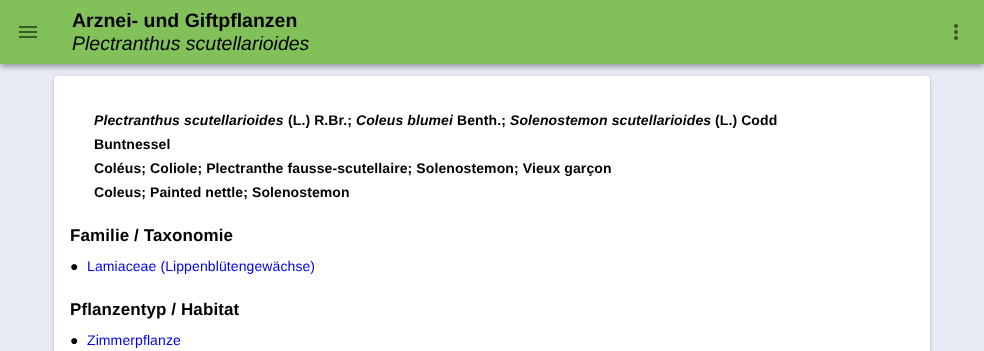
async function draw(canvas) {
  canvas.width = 984
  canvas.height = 351
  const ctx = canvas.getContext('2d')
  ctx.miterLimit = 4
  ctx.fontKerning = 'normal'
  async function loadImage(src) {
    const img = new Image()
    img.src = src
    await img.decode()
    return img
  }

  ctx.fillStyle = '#e8eaf6'
  ctx.fillRect(0, 0, 984, 351)
  ctx.fillStyle = '#0000001f'
  ctx.filter = 'blur(2.5px)'
  ctx.beginPath()
  ctx.roundRect(54, 77, 876, 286, 4)
  ctx.fill()
  ctx.filter = 'none'
  ctx.fillStyle = '#00000024'
  ctx.filter = 'blur(1px)'
  ctx.beginPath()
  ctx.roundRect(54, 78, 876, 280, 4)
  ctx.fill()
  ctx.filter = 'none'
  ctx.fillStyle = '#fff'
  ctx.beginPath()
  ctx.roundRect(54, 76, 876, 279, 4)
  ctx.fill()
  ctx.fillStyle = '#0000001f'
  ctx.filter = 'blur(5px)'
  ctx.beginPath()
  ctx.rect(0, 1, 984, 64)
  ctx.fill()
  ctx.filter = 'none'
  ctx.fillStyle = '#00000024'
  ctx.filter = 'blur(2.5px)'
  ctx.beginPath()
  ctx.rect(0, 4, 984, 64)
  ctx.fill()
  ctx.filter = 'none'
  ctx.fillStyle = '#00000033'
  ctx.filter = 'blur(2px)'
  ctx.beginPath()
  ctx.rect(1, 3, 982, 62)
  ctx.fill()
  ctx.filter = 'none'
  ctx.fillStyle = '#82c059'
  ctx.fillRect(0, 0, 984, 64)
  ctx.drawImage(await loadImage('image0.png'), 19, 26, 18, 12)
  ctx.font = 'bold 19.5px Liberation Sans'
  ctx.fillStyle = '#000'
  ctx.fillText('Arznei- und Giftpflanzen', 72, 27)
  ctx.font = 'italic 19.5px Liberation Sans'
  ctx.fillText('Plectranthus scutellarioides', 72, 50)
  ctx.drawImage(await loadImage('image1.png'), 954, 24, 4, 16)
  ctx.letterSpacing = '0.1px'
  ctx.font = 'italic bold 14px Liberation Sans'
  ctx.fillText('Plectranthus scutellarioides', 94, 125)
  ctx.font = 'bold 14px Liberation Sans'
  ctx.fillText('(L.) R.Br.;', 288, 125)
  ctx.font = 'italic bold 14px Liberation Sans'
  ctx.fillText('Coleus blumei', 356, 125)
  ctx.font = 'bold 14px Liberation Sans'
  ctx.fillText('Benth.;', 457, 125)
  ctx.font = 'italic bold 14px Liberation Sans'
  ctx.fillText('Solenostemon scutellarioides', 510, 125)
  ctx.font = 'bold 14px Liberation Sans'
  ctx.fillText('(L.) Codd', 715, 125)
  ctx.fillText('Buntnessel', 94, 149)
  ctx.fillText('Coléus; Coliole; Plectranthe fausse-scutellaire; Solenostemon; Vieux garçon', 94, 173)
  ctx.fillText('Coleus; Painted nettle; Solenostemon', 94, 197)
  ctx.font = 'bold 17px Liberation Sans'
  ctx.fillText('Familie / Taxonomie', 70, 241)
  ctx.font = '14px Liberation Sans'
  ctx.fillText('●', 70, 271)
  ctx.fillStyle = '#00e'
  ctx.fillText('Lamiaceae (Lippenblütengewächse)', 87, 271)
  ctx.font = 'bold 17px Liberation Sans'
  ctx.fillStyle = '#000'
  ctx.fillText('Pflanzentyp / Habitat', 70, 315)
  ctx.font = '14px Liberation Sans'
  ctx.fillText('●', 70, 345)
  ctx.fillStyle = '#00e'
  ctx.fillText('Zimmerpflanze', 87, 345)
}

draw(document.querySelector('canvas'))
